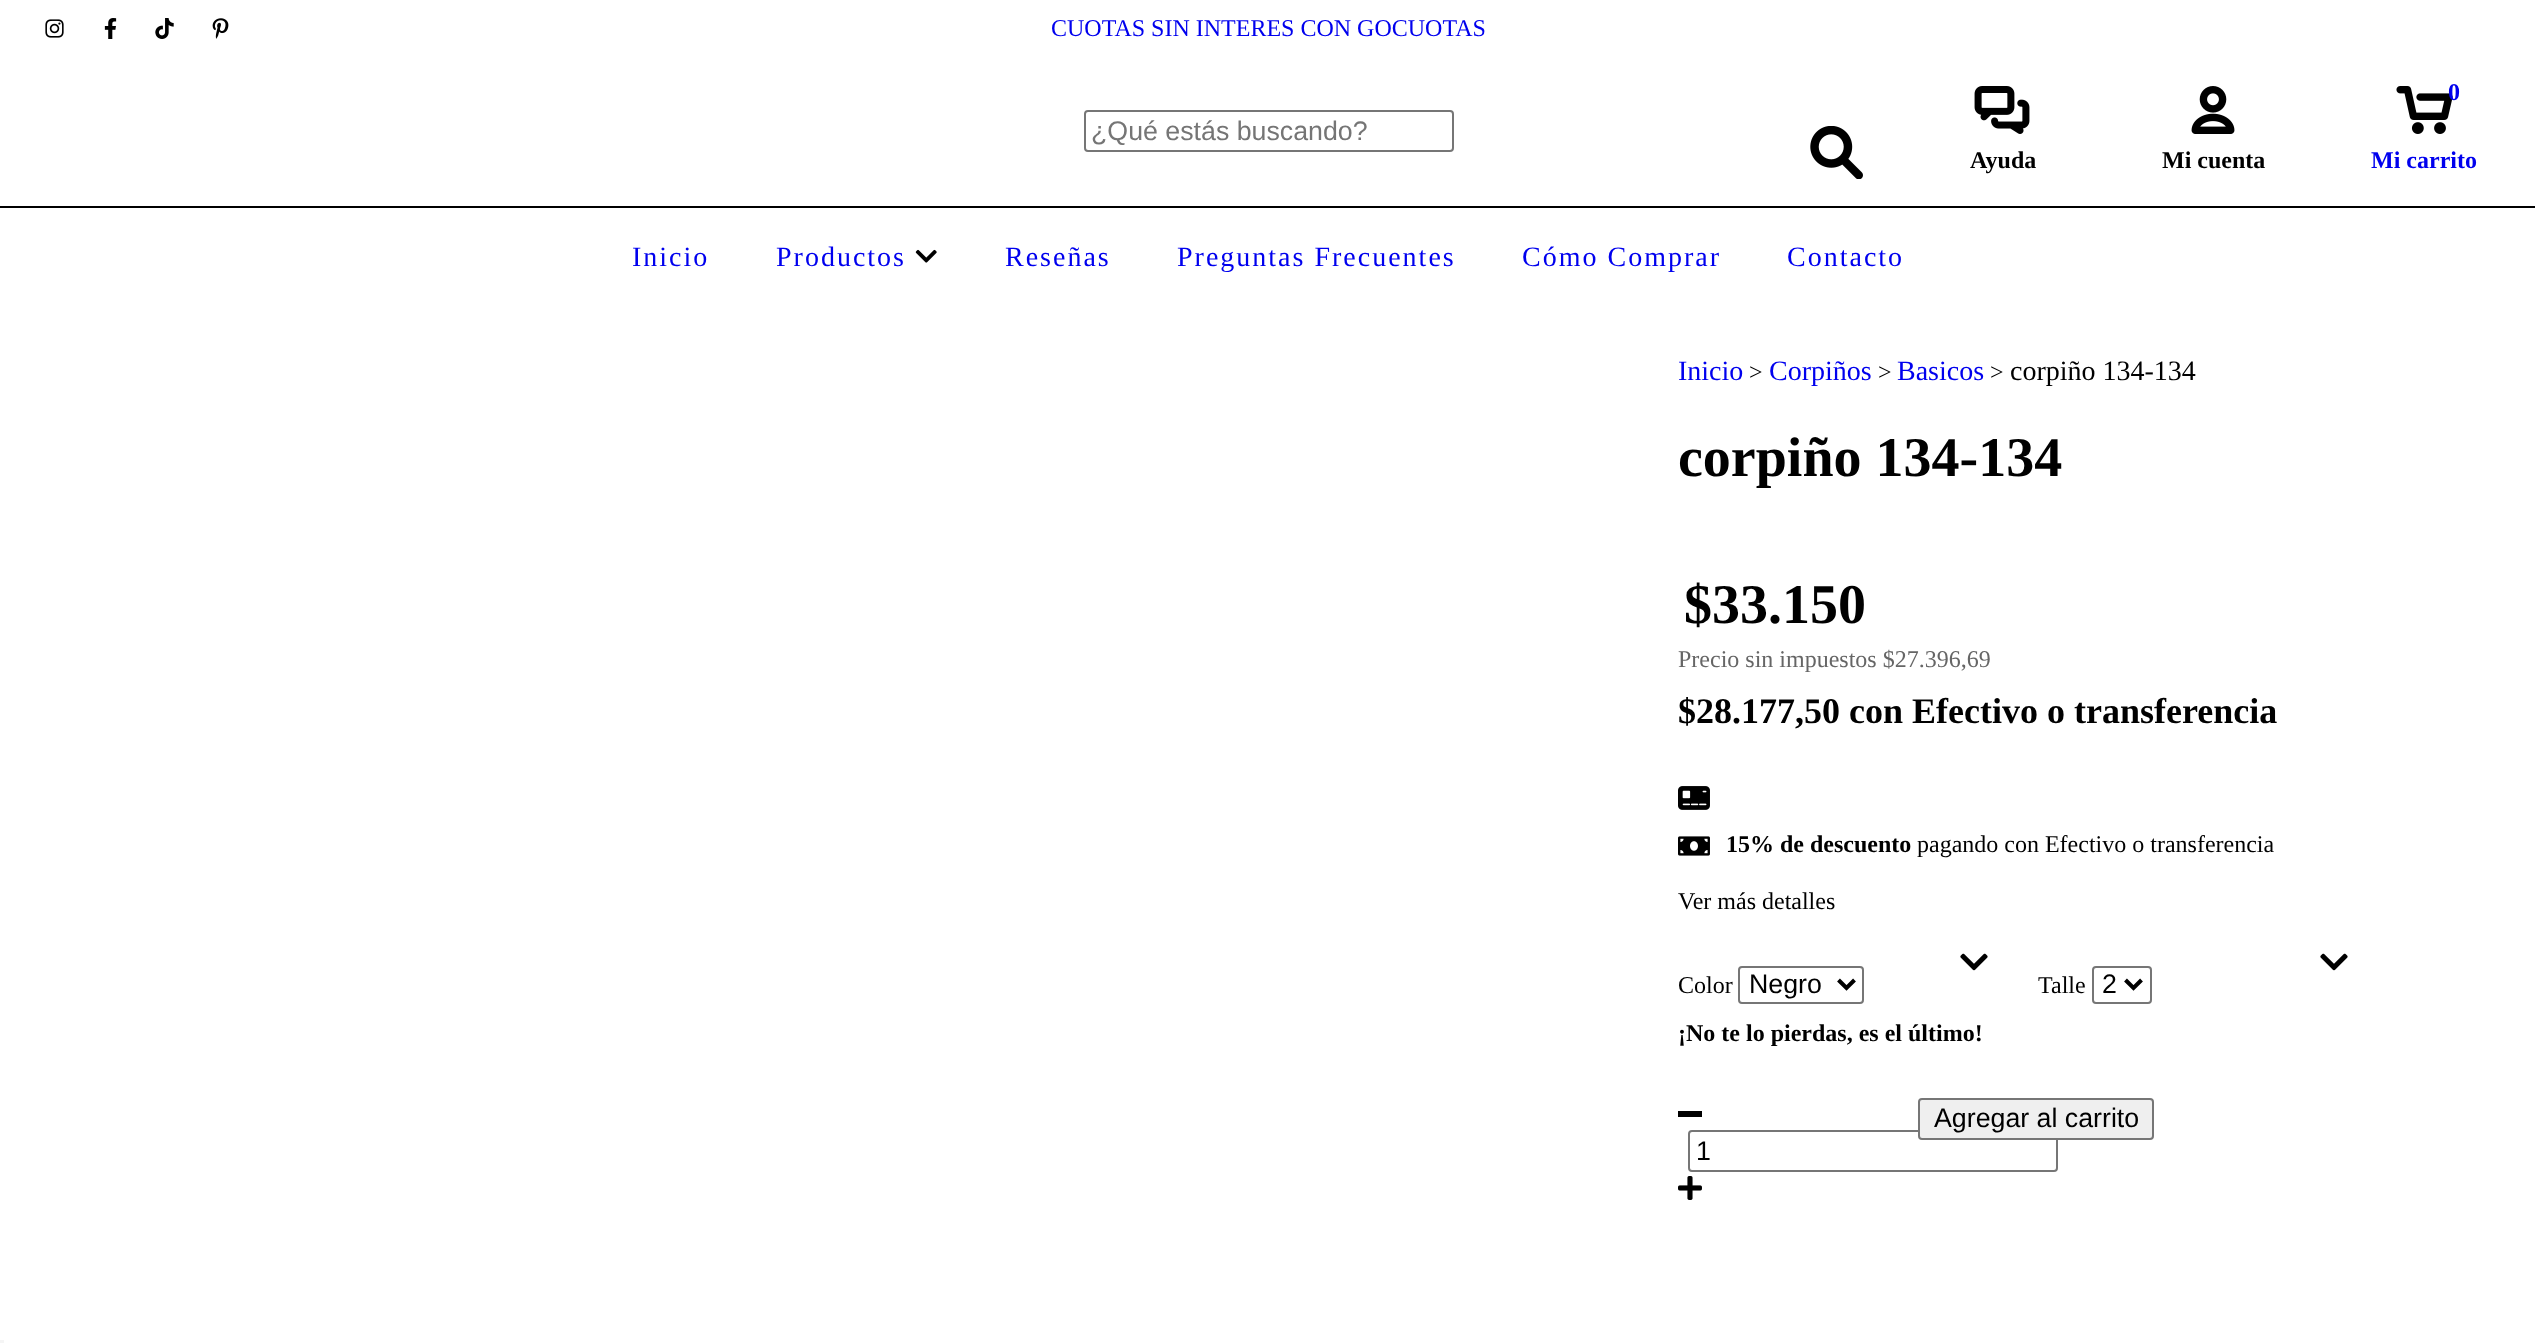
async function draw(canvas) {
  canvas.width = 2535
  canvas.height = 1343
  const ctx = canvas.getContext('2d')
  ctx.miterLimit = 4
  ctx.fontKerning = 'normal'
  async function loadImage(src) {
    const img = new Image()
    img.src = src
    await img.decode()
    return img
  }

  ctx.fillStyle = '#fff'
  ctx.fillRect(0, 0, 2535, 1343)
  ctx.drawImage(await loadImage('image0.png'), 45, 19, 19, 19)
  ctx.drawImage(await loadImage('image1.png'), 104, 18, 13, 21)
  ctx.drawImage(await loadImage('image2.png'), 155, 18, 19, 21)
  ctx.drawImage(await loadImage('image3.png'), 212, 18, 17, 21)
  ctx.font = '24px Liberation Serif'
  ctx.fillStyle = '#00e'
  ctx.fillText('CUOTAS SIN INTERES CON GOCUOTAS', 1051, 36)
  ctx.beginPath()
  ctx.roundRect(1085, 111, 368, 40, 3)
  ctx.strokeStyle = '#767676'
  ctx.lineWidth = 2
  ctx.stroke()
  ctx.font = '26.75px Liberation Sans'
  ctx.fillStyle = '#757575'
  ctx.fillText('¿Qué estás buscando?', 1091, 140)
  ctx.drawImage(await loadImage('image4.png'), 1810, 126, 53, 53)
  ctx.drawImage(await loadImage('image5.png'), 1974, 86, 56, 48)
  ctx.font = 'bold 24px Liberation Serif'
  ctx.fillStyle = '#000'
  ctx.fillText('Ayuda', 1970, 168)
  ctx.drawImage(await loadImage('image6.png'), 2191, 86, 44, 48)
  ctx.fillText('Mi cuenta', 2162, 168)
  ctx.drawImage(await loadImage('image7.png'), 2396, 86, 57, 48)
  ctx.fillStyle = '#00e'
  ctx.fillText('0', 2448, 100)
  ctx.fillText('Mi carrito', 2371, 168)
  ctx.fillStyle = '#000'
  ctx.fillRect(0, 206, 2535, 2)
  ctx.letterSpacing = '2px'
  ctx.font = '28px Liberation Serif'
  ctx.fillStyle = '#00e'
  ctx.fillText('Inicio', 632, 266)
  ctx.fillText('Productos', 776, 266)
  ctx.drawImage(await loadImage('image8.png'), 915, 249, 22, 14)
  ctx.fillText('Reseñas', 1005, 266)
  ctx.fillText('Preguntas Frecuentes', 1177, 266)
  ctx.fillText('Cómo Comprar', 1522, 266)
  ctx.fillText('Contacto', 1787, 266)
  ctx.letterSpacing = '0px'
  ctx.fillText('Inicio', 1678, 380)
  ctx.font = '24px Liberation Serif'
  ctx.fillStyle = '#000'
  ctx.fillText('>', 1749, 380)
  ctx.font = '28px Liberation Serif'
  ctx.fillStyle = '#00e'
  ctx.fillText('Corpiños', 1769, 380)
  ctx.font = '24px Liberation Serif'
  ctx.fillStyle = '#000'
  ctx.fillText('>', 1878, 380)
  ctx.font = '28px Liberation Serif'
  ctx.fillStyle = '#00e'
  ctx.fillText('Basicos', 1897, 380)
  ctx.font = '24px Liberation Serif'
  ctx.fillStyle = '#000'
  ctx.fillText('>', 1990, 380)
  ctx.font = '28px Liberation Serif'
  ctx.fillText('corpiño 134-134', 2010, 380)
  ctx.font = 'bold 56px Liberation Serif'
  ctx.fillText('corpiño 134-134', 1678, 476)
  ctx.fillText('$33.150', 1684, 623)
  ctx.font = '24px Liberation Serif'
  ctx.fillStyle = '#666'
  ctx.fillText('Precio sin impuestos $27.396,69', 1678, 667)
  ctx.font = 'bold 36px Liberation Serif'
  ctx.fillStyle = '#000'
  ctx.fillText('$28.177,50 con Efectivo o transferencia', 1678, 723)
  ctx.drawImage(await loadImage('image9.png'), 1678, 786, 32, 24)
  ctx.drawImage(await loadImage('image10.png'), 1678, 836, 32, 20)
  ctx.font = 'bold 24px Liberation Serif'
  ctx.fillText('15% de descuento', 1726, 852)
  ctx.font = '24px Liberation Serif'
  ctx.fillText('pagando con Efectivo o transferencia', 1917, 852)
  ctx.fillText('Ver más detalles', 1678, 909)
  ctx.drawImage(await loadImage('image11.png'), 1960, 953, 28, 18)
  ctx.fillText('Color', 1678, 993)
  ctx.beginPath()
  ctx.roundRect(1739, 967, 124, 36, 3)
  ctx.stroke()
  ctx.beginPath()
  ctx.moveTo(1838.5, 980)
  ctx.lineTo(1846.5, 988)
  ctx.lineTo(1854.5, 980)
  ctx.strokeStyle = '#000'
  ctx.lineWidth = 4
  ctx.stroke()
  ctx.font = '26.75px Liberation Sans'
  ctx.fillText('Negro', 1749, 993)
  ctx.drawImage(await loadImage('image11.png'), 2320, 953, 28, 18)
  ctx.font = '24px Liberation Serif'
  ctx.fillText('Talle', 2038, 993)
  ctx.beginPath()
  ctx.roundRect(2093, 967, 58, 36, 3)
  ctx.strokeStyle = '#767676'
  ctx.lineWidth = 2
  ctx.stroke()
  ctx.beginPath()
  ctx.moveTo(2125.5, 980)
  ctx.lineTo(2133.5, 988)
  ctx.lineTo(2141.5, 980)
  ctx.strokeStyle = '#000'
  ctx.lineWidth = 4
  ctx.stroke()
  ctx.font = '26.75px Liberation Sans'
  ctx.fillText('2', 2102, 993)
  ctx.font = 'bold 24px Liberation Serif'
  ctx.fillText('¡No te lo pierdas, es el último!', 1678, 1041)
  ctx.beginPath()
  ctx.roundRect(1689, 1131, 368, 40, 3)
  ctx.strokeStyle = '#767676'
  ctx.lineWidth = 2
  ctx.stroke()
  ctx.fillStyle = '#efefef'
  ctx.beginPath()
  ctx.roundRect(1919, 1099, 234, 40, 3)
  ctx.fill()
  ctx.stroke()
  ctx.font = '26.75px Liberation Sans'
  ctx.fillStyle = '#000'
  ctx.fillText('Agregar al carrito', 1934, 1127)
  ctx.fillRect(1678, 1111, 24, 6)
  ctx.fillText('1', 1696, 1160)
  ctx.drawImage(await loadImage('image12.png'), 1678, 1176, 24, 24)
  ctx.fillStyle = '#f5f5f5'
  ctx.fillRect(0, 1340, 4, 3)
}

draw(document.querySelector('canvas'))
